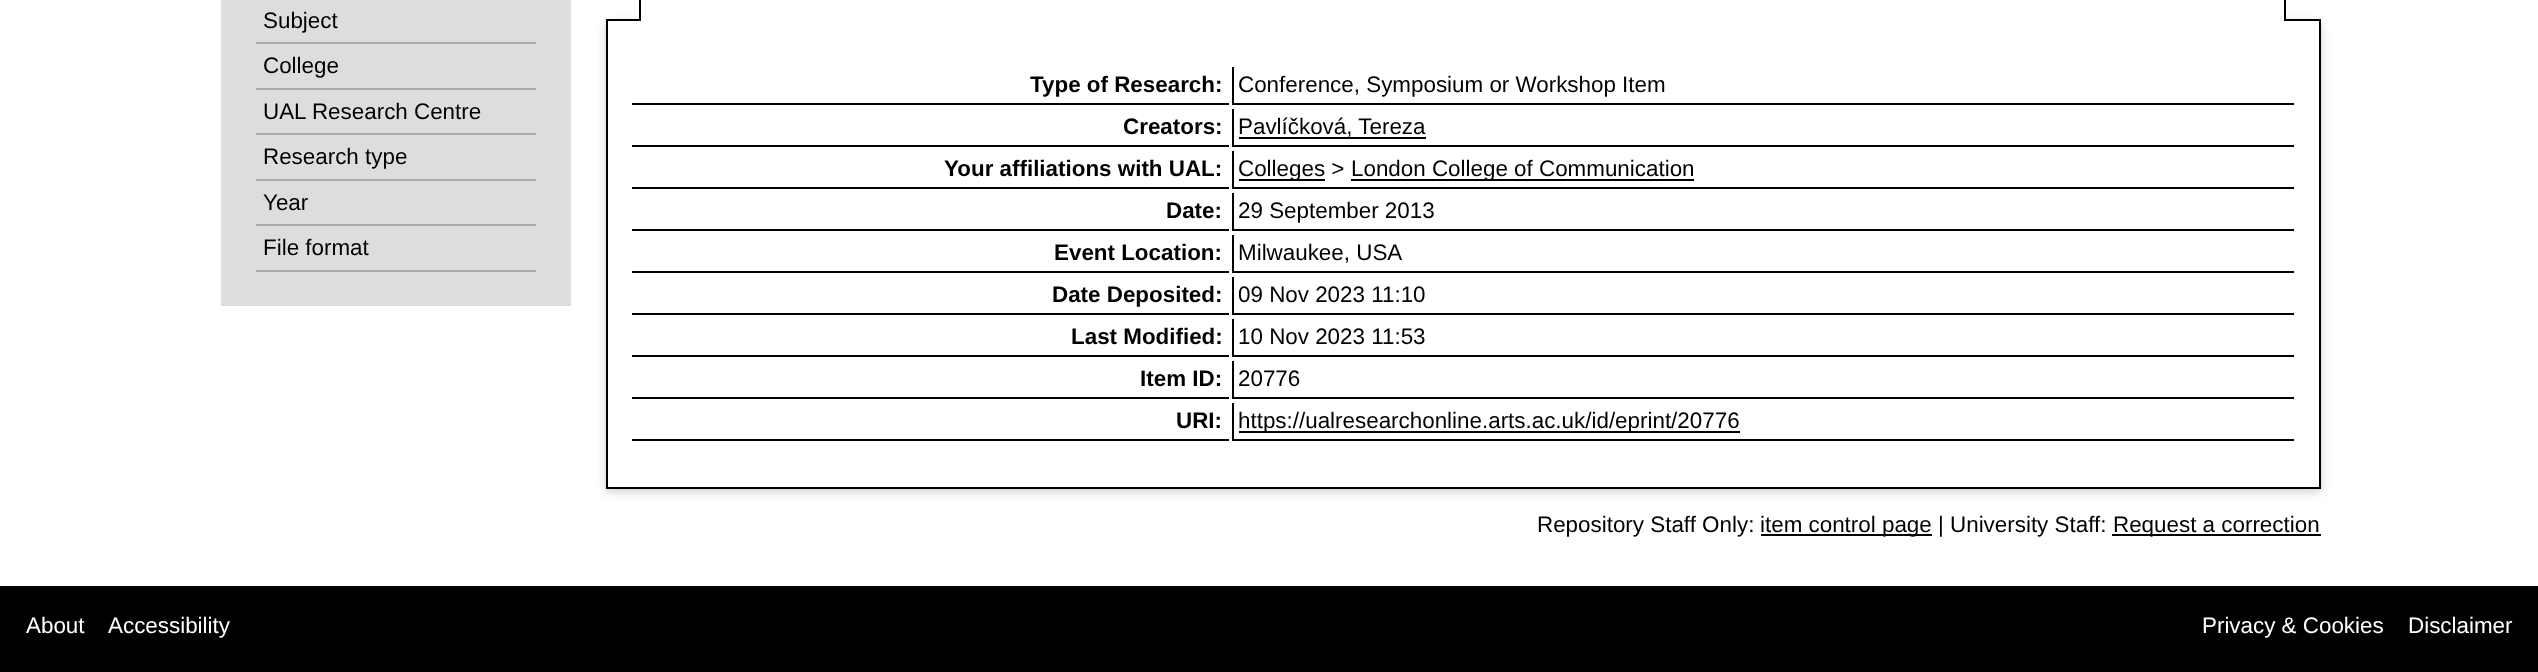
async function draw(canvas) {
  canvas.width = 2538
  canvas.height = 672
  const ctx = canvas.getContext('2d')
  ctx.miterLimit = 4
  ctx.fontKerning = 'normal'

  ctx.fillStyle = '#fff'
  ctx.fillRect(0, 0, 2538, 672)
  ctx.fillStyle = '#ddd'
  ctx.fillRect(221, 0, 350, 306)
  ctx.fillStyle = '#aaa'
  ctx.fillRect(256, 42, 280, 2)
  ctx.font = '22.4px Liberation Sans'
  ctx.fillStyle = '#000'
  ctx.fillText('Subject', 263, 28)
  ctx.fillStyle = '#aaa'
  ctx.fillRect(256, 88, 280, 2)
  ctx.fillStyle = '#000'
  ctx.fillText('College', 263, 73)
  ctx.fillStyle = '#aaa'
  ctx.fillRect(256, 133, 280, 2)
  ctx.fillStyle = '#000'
  ctx.fillText('UAL Research Centre', 263, 119)
  ctx.fillStyle = '#aaa'
  ctx.fillRect(256, 179, 280, 2)
  ctx.fillStyle = '#000'
  ctx.fillText('Research type', 263, 164)
  ctx.fillStyle = '#aaa'
  ctx.fillRect(256, 224, 280, 2)
  ctx.fillStyle = '#000'
  ctx.fillText('Year', 263, 210)
  ctx.fillStyle = '#aaa'
  ctx.fillRect(256, 270, 280, 2)
  ctx.fillStyle = '#000'
  ctx.fillText('File format', 263, 255)
  ctx.fillStyle = '#6464644d'
  ctx.filter = 'blur(5px)'
  ctx.beginPath()
  ctx.rect(606, 23, 1715, 469)
  ctx.fill()
  ctx.filter = 'none'
  ctx.fillStyle = '#000'
  ctx.fillRect(2319, 19, 2, 469)
  ctx.fillRect(606, 487, 1715, 2)
  ctx.fillRect(606, 19, 2, 469)
  ctx.fillRect(606, 19, 1715, 2)
  ctx.fillStyle = '#fff'
  ctx.fillRect(641, 15, 1643, 6)
  ctx.fillStyle = '#000'
  ctx.fillRect(2284, 0, 2, 21)
  ctx.fillRect(639, 0, 2, 21)
  ctx.fillStyle = '#fff'
  ctx.fillRect(608, 21, 1711, 466)
  ctx.fillStyle = '#000'
  ctx.fillRect(632, 103, 597, 2)
  ctx.font = 'bold 22.4px Liberation Sans'
  ctx.fillText('Type of Research:', 1030, 92)
  ctx.fillRect(1232, 103, 1062, 2)
  ctx.fillRect(1232, 67, 2, 38)
  ctx.font = '22.4px Liberation Sans'
  ctx.fillText('Conference, Symposium or Workshop Item', 1238, 92)
  ctx.fillRect(632, 145, 597, 2)
  ctx.font = 'bold 22.4px Liberation Sans'
  ctx.fillText('Creators:', 1123, 134)
  ctx.fillRect(1232, 145, 1062, 2)
  ctx.fillRect(1232, 109, 2, 38)
  ctx.font = '22.4px Liberation Sans'
  ctx.fillText('Pavlíčková, Tereza', 1238, 134)
  ctx.fillRect(1239, 137, 187, 2)
  ctx.fillRect(632, 187, 597, 2)
  ctx.font = 'bold 22.4px Liberation Sans'
  ctx.fillText('Your affiliations with UAL:', 944, 176)
  ctx.fillRect(1232, 187, 1062, 2)
  ctx.fillRect(1232, 151, 2, 38)
  ctx.fillRect(1239, 179, 86, 2)
  ctx.font = '22.4px Liberation Sans'
  ctx.fillText('Colleges >', 1238, 176)
  ctx.fillRect(1351, 179, 343, 2)
  ctx.fillText('London College of Communication', 1351, 176)
  ctx.fillRect(632, 229, 597, 2)
  ctx.font = 'bold 22.4px Liberation Sans'
  ctx.fillText('Date:', 1166, 218)
  ctx.fillRect(1232, 229, 1062, 2)
  ctx.fillRect(1232, 193, 2, 38)
  ctx.font = '22.4px Liberation Sans'
  ctx.fillText('29 September 2013', 1238, 218)
  ctx.fillRect(632, 271, 597, 2)
  ctx.font = 'bold 22.4px Liberation Sans'
  ctx.fillText('Event Location:', 1054, 260)
  ctx.fillRect(1232, 271, 1062, 2)
  ctx.fillRect(1232, 235, 2, 38)
  ctx.font = '22.4px Liberation Sans'
  ctx.fillText('Milwaukee, USA', 1238, 260)
  ctx.fillRect(632, 313, 597, 2)
  ctx.font = 'bold 22.4px Liberation Sans'
  ctx.fillText('Date Deposited:', 1052, 302)
  ctx.fillRect(1232, 313, 1062, 2)
  ctx.fillRect(1232, 277, 2, 38)
  ctx.font = '22.4px Liberation Sans'
  ctx.fillText('09 Nov 2023 11:10', 1238, 302)
  ctx.fillRect(632, 355, 597, 2)
  ctx.font = 'bold 22.4px Liberation Sans'
  ctx.fillText('Last Modified:', 1071, 344)
  ctx.fillRect(1232, 355, 1062, 2)
  ctx.fillRect(1232, 319, 2, 38)
  ctx.font = '22.4px Liberation Sans'
  ctx.fillText('10 Nov 2023 11:53', 1238, 344)
  ctx.fillRect(632, 397, 597, 2)
  ctx.font = 'bold 22.4px Liberation Sans'
  ctx.fillText('Item ID:', 1140, 386)
  ctx.fillRect(1232, 397, 1062, 2)
  ctx.fillRect(1232, 361, 2, 38)
  ctx.font = '22.4px Liberation Sans'
  ctx.fillText('20776', 1238, 386)
  ctx.fillRect(632, 439, 597, 2)
  ctx.font = 'bold 22.4px Liberation Sans'
  ctx.fillText('URI:', 1176, 428)
  ctx.fillRect(1232, 439, 1062, 2)
  ctx.fillRect(1232, 403, 2, 38)
  ctx.fillRect(1239, 431, 501, 2)
  ctx.font = '22.4px Liberation Sans'
  ctx.fillText('https://ualresearchonline.arts.ac.uk/id/eprint/20776', 1238, 428)
  ctx.fillText('Repository Staff Only:', 1537, 532)
  ctx.fillRect(1761, 534, 171, 2)
  ctx.fillText('item control page | University Staff:', 1760, 532)
  ctx.fillRect(2112, 534, 209, 2)
  ctx.fillText('Request a correction', 2113, 532)
  ctx.fillRect(0, 586, 2538, 86)
  ctx.fillStyle = '#fff'
  ctx.fillText('About', 26, 633)
  ctx.fillText('Accessibility', 108, 633)
  ctx.fillText('Privacy & Cookies', 2202, 633)
  ctx.fillText('Disclaimer', 2408, 633)
}

draw(document.querySelector('canvas'))
